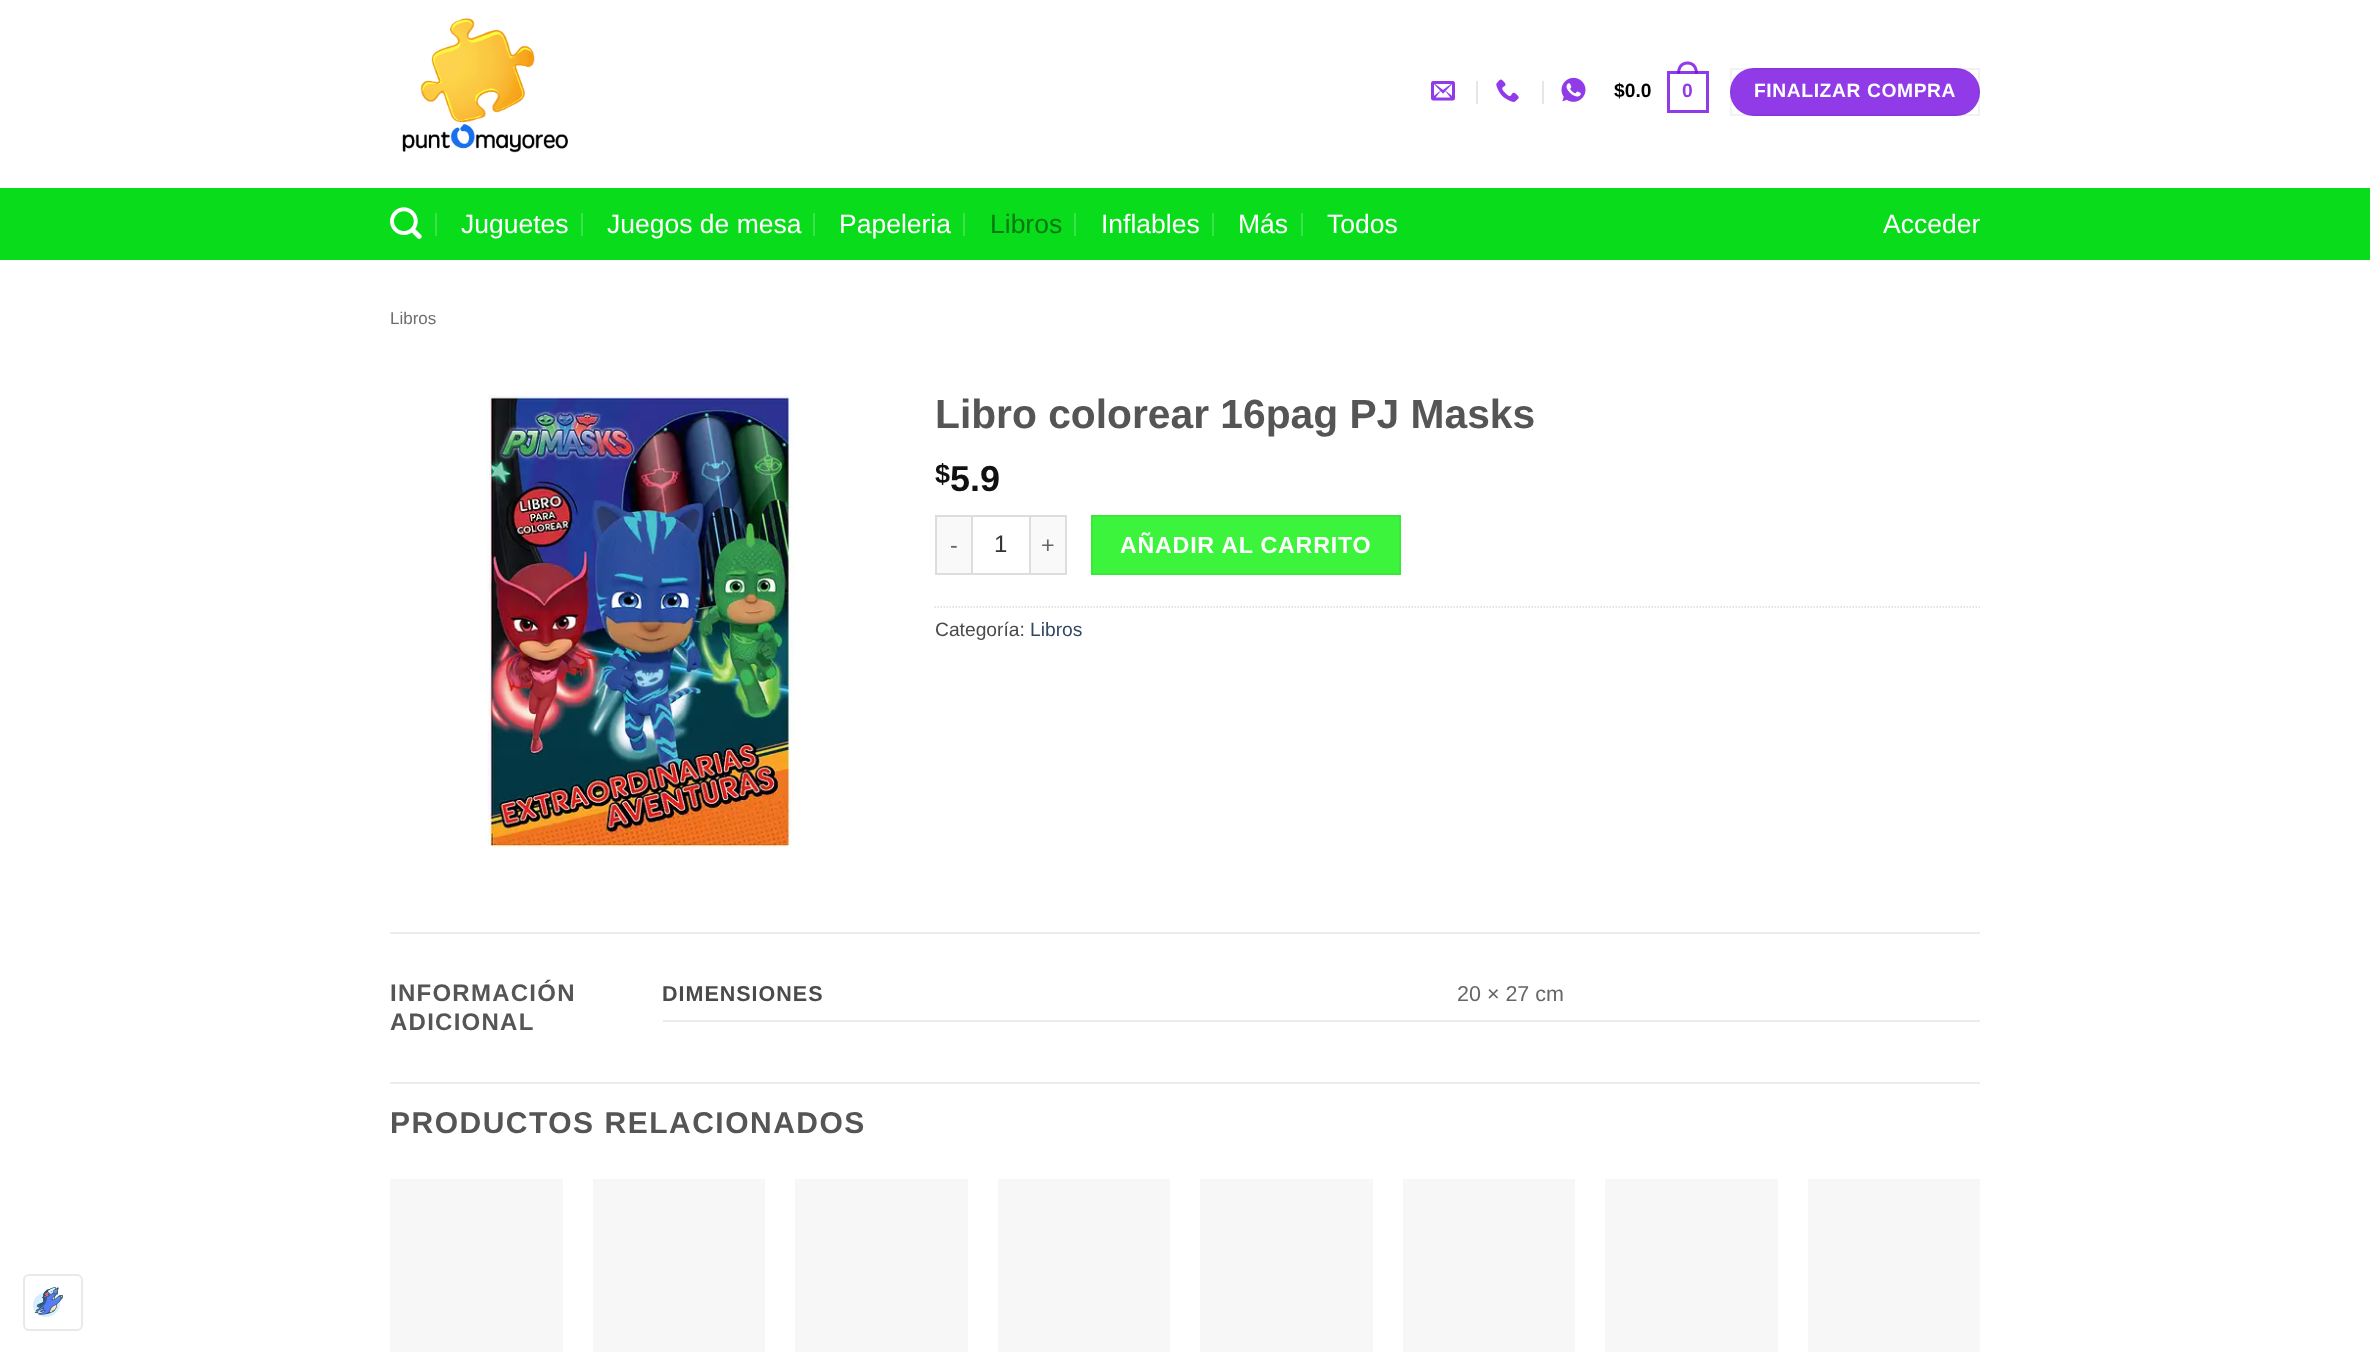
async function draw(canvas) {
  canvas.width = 2370
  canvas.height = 1353
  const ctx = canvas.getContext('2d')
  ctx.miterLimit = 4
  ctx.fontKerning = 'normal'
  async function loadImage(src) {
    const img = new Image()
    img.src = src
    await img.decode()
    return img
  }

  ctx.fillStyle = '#fff'
  ctx.fillRect(0, 0, 2370, 1353)
  ctx.drawImage(await loadImage('image0.png'), 402, 18, 166, 135)
  ctx.drawImage(await loadImage('image1.png'), 1431, 81, 24, 20)
  ctx.fillStyle = '#e6e6e6'
  ctx.fillRect(1476, 81, 2, 23)
  ctx.drawImage(await loadImage('image2.png'), 1496, 79, 23, 23)
  ctx.fillRect(1542, 81, 2, 23)
  ctx.drawImage(await loadImage('image3.png'), 1561, 77, 25, 25)
  ctx.font = 'bold 19.25px Liberation Sans'
  ctx.fillStyle = '#000'
  ctx.fillText('$0.0', 1614, 97)
  ctx.strokeStyle = '#913ae8'
  ctx.lineWidth = 3
  ctx.strokeRect(1668.5, 72.5, 39, 39)
  ctx.fillStyle = '#7609e2cc'
  ctx.beginPath()
  ctx.moveTo(1687.5, 61.5)
  ctx.bezierCurveTo(1694.5, 61.5, 1698, 67, 1698, 73.5)
  ctx.lineTo(1677, 73.5)
  ctx.bezierCurveTo(1677, 67, 1680.5, 61.5, 1687.5, 61.5)
  ctx.closePath()
  ctx.moveTo(1687.5, 64.5)
  ctx.bezierCurveTo(1693, 64.5, 1695, 69, 1695, 73.5)
  ctx.lineTo(1680, 73.5)
  ctx.bezierCurveTo(1680, 69, 1682, 64.5, 1687.5, 64.5)
  ctx.closePath()
  ctx.fill('evenodd')
  ctx.fillStyle = '#913ae8'
  ctx.fillText('0', 1682, 97)
  ctx.beginPath()
  ctx.roundRect(1730, 68, 250, 48, 24)
  ctx.fill()
  ctx.strokeStyle = '#0000000d'
  ctx.lineWidth = 2
  ctx.strokeRect(1731, 69, 248, 46)
  ctx.letterSpacing = '0.6px'
  ctx.fillStyle = '#fff'
  ctx.fillText('FINALIZAR COMPRA', 1754, 97)
  ctx.fillStyle = '#09dc1b'
  ctx.fillRect(0, 188, 2370, 72)
  ctx.drawImage(await loadImage('image4.png'), 390, 207, 32, 32)
  ctx.fillStyle = '#3ae349'
  ctx.fillRect(435, 213, 2, 23)
  ctx.letterSpacing = '0px'
  ctx.font = '26.5px Liberation Sans'
  ctx.fillStyle = '#fff'
  ctx.fillText('Juguetes', 461, 233)
  ctx.fillStyle = '#3ae349'
  ctx.fillRect(581, 213, 2, 23)
  ctx.fillStyle = '#fff'
  ctx.fillText('Juegos de mesa', 607, 233)
  ctx.fillStyle = '#3ae349'
  ctx.fillRect(813, 213, 2, 23)
  ctx.fillStyle = '#fff'
  ctx.fillText('Papeleria', 839, 233)
  ctx.fillStyle = '#3ae349'
  ctx.fillRect(963, 213, 2, 23)
  ctx.fillStyle = '#05790f'
  ctx.fillText('Libros', 990, 233)
  ctx.fillStyle = '#3ae349'
  ctx.fillRect(1074, 213, 2, 23)
  ctx.fillStyle = '#fff'
  ctx.fillText('Inflables', 1101, 233)
  ctx.fillStyle = '#3ae349'
  ctx.fillRect(1212, 213, 2, 23)
  ctx.fillStyle = '#fff'
  ctx.fillText('Más', 1238, 233)
  ctx.fillStyle = '#3ae349'
  ctx.fillRect(1301, 213, 2, 23)
  ctx.fillStyle = '#fff'
  ctx.fillText('Todos', 1327, 233)
  ctx.fillText('Acceder', 1883, 233)
  ctx.font = '17px Liberation Sans'
  ctx.fillStyle = '#6e6e6e'
  ctx.fillText('Libros', 390, 324)
  ctx.drawImage(await loadImage('image5.png'), 486, 394, 308, 454)
  ctx.font = 'bold 40.75px Liberation Sans'
  ctx.fillStyle = '#555'
  ctx.fillText('Libro colorear 16pag PJ Masks', 935, 428)
  ctx.font = 'bold 27px Liberation Sans'
  ctx.fillStyle = '#111'
  ctx.fillText('$', 935, 483)
  ctx.font = 'bold 36px Liberation Sans'
  ctx.fillText('5.9', 950, 491)
  ctx.fillStyle = '#f9f9f9'
  ctx.fillRect(937, 517, 34, 56)
  ctx.fillStyle = '#ddd'
  ctx.fillRect(935, 515, 36, 2)
  ctx.fillRect(935, 573, 36, 2)
  ctx.fillRect(935, 515, 2, 60)
  ctx.letterSpacing = '0.75px'
  ctx.font = '23.25px Liberation Sans'
  ctx.fillStyle = '#666'
  ctx.fillText('-', 950, 553)
  ctx.strokeStyle = '#ddd'
  ctx.strokeRect(972, 516, 58, 58)
  ctx.letterSpacing = '0px'
  ctx.font = '24px Liberation Sans'
  ctx.fillStyle = '#333'
  ctx.fillText('1', 994, 552)
  ctx.fillStyle = '#f9f9f9'
  ctx.fillRect(1031, 517, 34, 56)
  ctx.fillStyle = '#ddd'
  ctx.fillRect(1031, 515, 36, 2)
  ctx.fillRect(1065, 515, 2, 60)
  ctx.fillRect(1031, 573, 36, 2)
  ctx.letterSpacing = '0.75px'
  ctx.font = '23.25px Liberation Sans'
  ctx.fillStyle = '#666'
  ctx.fillText('+', 1041, 553)
  ctx.fillStyle = '#3df43d'
  ctx.beginPath()
  ctx.rect(1092, 516, 308, 58)
  ctx.fill()
  ctx.strokeStyle = '#3ae83a'
  ctx.stroke()
  ctx.font = 'bold 23.25px Liberation Sans'
  ctx.fillStyle = '#fff'
  ctx.fillText('AÑADIR AL CARRITO', 1120, 553)
  ctx.beginPath()
  ctx.moveTo(934.5, 607)
  ctx.lineTo(1980, 607)
  ctx.strokeStyle = '#ddd'
  ctx.lineWidth = 1.5
  ctx.setLineDash([1.5, 1.5])
  ctx.stroke()
  ctx.letterSpacing = '0px'
  ctx.font = '19.25px Liberation Sans'
  ctx.fillStyle = '#4a4a4a'
  ctx.fillText('Categoría:', 935, 636)
  ctx.fillStyle = '#334862'
  ctx.fillText('Libros', 1030, 636)
  ctx.fillStyle = '#ececec'
  ctx.fillRect(390, 932, 1590, 2)
  ctx.letterSpacing = '1.25px'
  ctx.font = 'bold 24px Liberation Sans'
  ctx.fillStyle = '#555'
  ctx.fillText('INFORMACIÓN', 390, 1001)
  ctx.fillText('ADICIONAL', 390, 1030)
  ctx.fillStyle = '#ececec'
  ctx.fillRect(663, 1020, 1317, 2)
  ctx.letterSpacing = '1px'
  ctx.font = 'bold 21.5px Liberation Sans'
  ctx.fillStyle = '#4a4a4a'
  ctx.fillText('DIMENSIONES', 662, 1001)
  ctx.letterSpacing = '0px'
  ctx.font = '21.5px Liberation Sans'
  ctx.fillStyle = '#666'
  ctx.fillText('20 × 27 cm', 1457, 1001)
  ctx.fillStyle = '#ececec'
  ctx.fillRect(390, 1082, 1590, 2)
  ctx.letterSpacing = '1.5px'
  ctx.font = 'bold 30px Liberation Sans'
  ctx.fillStyle = '#555'
  ctx.fillText('PRODUCTOS RELACIONADOS', 390, 1133)
  ctx.fillStyle = '#f7f7f7'
  ctx.fillRect(390, 1179, 173, 173)
  ctx.fillRect(593, 1179, 172, 173)
  ctx.fillRect(795, 1179, 173, 173)
  ctx.fillRect(998, 1179, 172, 173)
  ctx.fillRect(1200, 1179, 173, 173)
  ctx.fillRect(1403, 1179, 172, 173)
  ctx.fillRect(1605, 1179, 173, 173)
  ctx.fillRect(1808, 1179, 172, 173)
  ctx.beginPath()
  ctx.roundRect(24, 1275, 58, 55, 5)
  ctx.strokeStyle = '#e9e9e9'
  ctx.lineWidth = 2
  ctx.setLineDash([])
  ctx.stroke()
  ctx.drawImage(await loadImage('image6.png'), 33, 1287, 30, 30)
}

draw(document.querySelector('canvas'))
